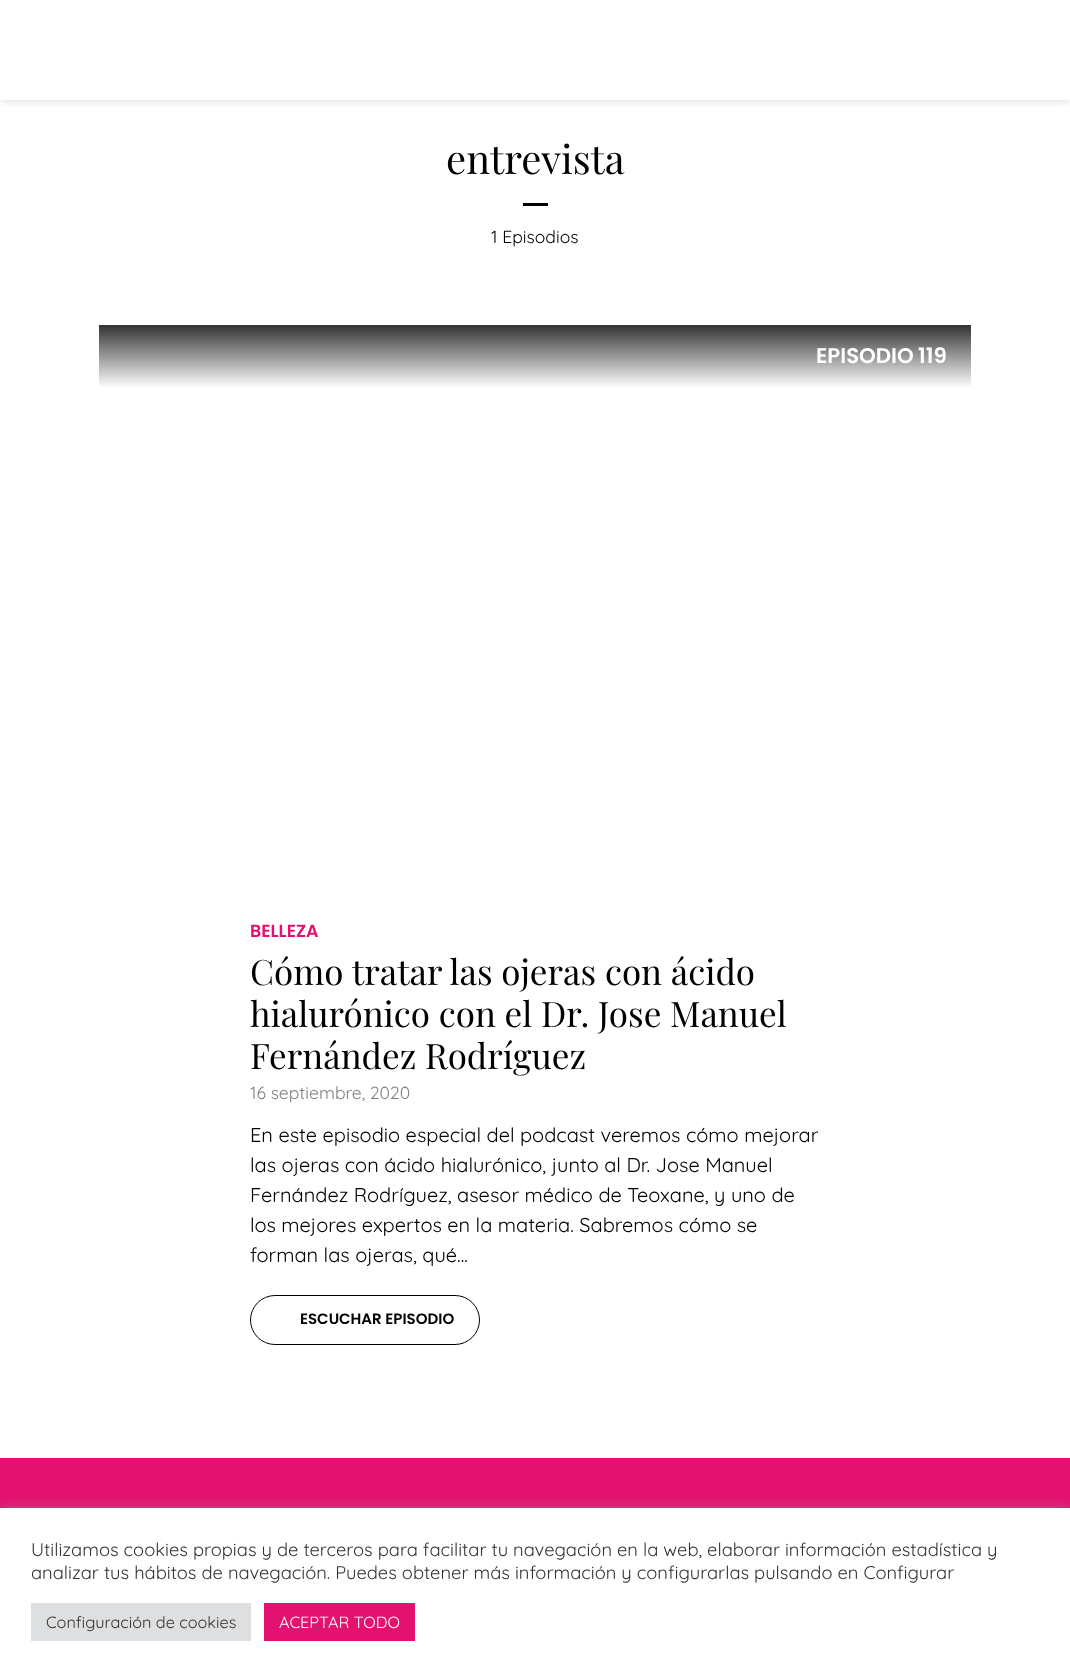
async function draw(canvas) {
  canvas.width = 1070
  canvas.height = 1678
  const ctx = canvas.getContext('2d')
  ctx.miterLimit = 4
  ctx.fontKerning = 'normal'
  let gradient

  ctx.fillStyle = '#fff'
  ctx.fillRect(0, 0, 1070, 1678)
  ctx.save()
  ctx.beginPath()
  ctx.rect(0, 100, 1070, 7)
  ctx.clip()
  ctx.fillStyle = '#00000026'
  ctx.filter = 'blur(6px)'
  ctx.beginPath()
  ctx.rect(0, 0, 1070, 100)
  ctx.fill()
  ctx.filter = 'none'
  ctx.restore()
  ctx.font = '40px Playfair Display'
  ctx.fillStyle = '#000'
  ctx.fillText('entrevista', 446, 174)
  ctx.fillRect(523, 203, 25, 3)
  ctx.font = '300 17.5px Quicksand'
  ctx.fillText('1 Episodios', 491, 243)
  gradient = ctx.createLinearGradient(535, 325, 535, 388)
  gradient.addColorStop(0, '#333')
  gradient.addColorStop(1, '#fff')
  ctx.fillStyle = gradient
  ctx.fillRect(99, 325, 872, 62)
  ctx.font = '600 21.25px Poppins'
  ctx.fillStyle = '#fff'
  ctx.fillText('EPISODIO', 816, 363)
  ctx.fillText('119', 918, 363)
  ctx.font = '600 17.5px Poppins'
  ctx.fillStyle = '#e3116f'
  ctx.fillText('BELLEZA', 250, 937)
  ctx.font = '35px Playfair Display'
  ctx.fillStyle = '#000'
  ctx.fillText('Cómo tratar las ojeras con ácido', 250, 985)
  ctx.fillText('hialurónico con el Dr. Jose Manuel', 250, 1027)
  ctx.fillText('Fernández Rodríguez', 250, 1069)
  ctx.font = '300 17.5px Quicksand'
  ctx.fillStyle = '#808080'
  ctx.fillText('16 septiembre, 2020', 250, 1099)
  ctx.font = '300 20px Quicksand'
  ctx.fillStyle = '#000'
  ctx.fillText('En este episodio especial del podcast veremos cómo mejorar', 250, 1142)
  ctx.fillText('las ojeras con ácido hialurónico, junto al Dr. Jose Manuel', 250, 1172)
  ctx.fillText('Fernández Rodríguez, asesor médico de Teoxane, y uno de', 250, 1202)
  ctx.fillText('los mejores expertos en la materia. Sabremos cómo se', 250, 1232)
  ctx.fillText('forman las ojeras, qué...', 250, 1262)
  ctx.beginPath()
  ctx.roundRect(250.5, 1295.5, 229, 49, 24.5)
  ctx.strokeStyle = '#000'
  ctx.stroke()
  ctx.font = '600 15px Poppins'
  ctx.fillText('ESCUCHAR EPISODIO', 300, 1324)
  ctx.fillStyle = '#e3116f'
  ctx.fillRect(0, 1458, 1070, 50)
  ctx.fillStyle = '#acabab4d'
  ctx.filter = 'blur(6px)'
  ctx.beginPath()
  ctx.rect(0, 1506, 1070, 172)
  ctx.fill()
  ctx.filter = 'none'
  ctx.fillStyle = '#fff'
  ctx.fillRect(0, 1508, 1070, 170)
  ctx.font = '300 18.33px Quicksand'
  ctx.fillStyle = '#333'
  ctx.fillText('Utilizamos cookies propias y de terceros para facilitar tu navegación en la web, elaborar información estadística y', 31, 1556)
  ctx.fillText('analizar tus hábitos de navegación. Puedes obtener más información y configurarlas pulsando en Configurar', 31, 1579)
  ctx.fillStyle = '#dedfe0'
  ctx.fillRect(31, 1603, 220, 38)
  ctx.font = '300 16.25px Quicksand'
  ctx.fillStyle = '#333'
  ctx.fillText('Configuración de cookies', 46, 1628)
  ctx.fillStyle = '#e3116f'
  ctx.fillRect(264, 1603, 151, 38)
  ctx.fillStyle = '#fff'
  ctx.fillText('ACEPTAR TODO', 279, 1628)
}

draw(document.querySelector('canvas'))
